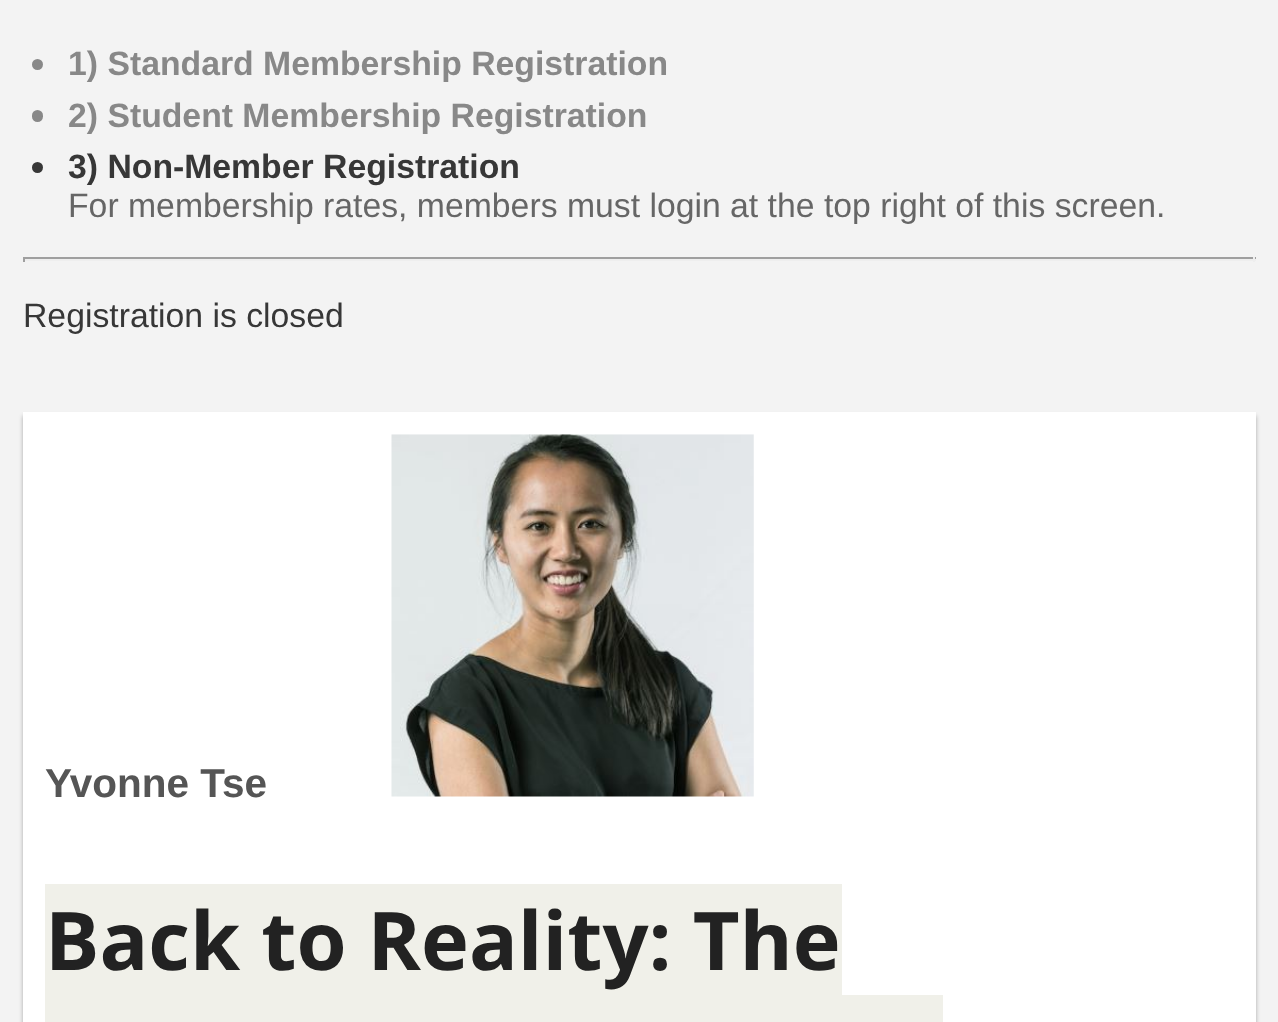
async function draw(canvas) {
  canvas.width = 1278
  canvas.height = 1022
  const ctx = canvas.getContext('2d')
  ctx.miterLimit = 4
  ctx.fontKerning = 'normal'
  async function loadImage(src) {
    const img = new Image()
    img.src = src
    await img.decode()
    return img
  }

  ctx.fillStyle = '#f3f3f3'
  ctx.fillRect(0, 0, 1278, 1022)
  ctx.fillStyle = '#888'
  ctx.beginPath()
  ctx.arc(37.5, 64.5, 5.5, 0, 2 * Math.PI)
  ctx.fill()
  ctx.font = 'bold 33.75px Liberation Sans'
  ctx.fillText('1) Standard Membership Registration', 68, 75)
  ctx.beginPath()
  ctx.roundRect(32, 110, 11, 12, 5.5)
  ctx.fill()
  ctx.fillText('2) Student Membership Registration', 68, 127)
  ctx.fillStyle = '#373737'
  ctx.beginPath()
  ctx.arc(37.5, 167.5, 5.5, 0, 2 * Math.PI)
  ctx.fill()
  ctx.fillText('3) Non-Member Registration', 68, 178)
  ctx.font = '33.75px Liberation Sans'
  ctx.fillStyle = '#666'
  ctx.fillText('For membership rates, members must login at the top right of this screen.', 68, 217)
  ctx.fillStyle = '#9f9f9f'
  ctx.fillRect(23, 257, 1233, 2)
  ctx.fillStyle = '#eee'
  ctx.fillRect(1253, 257, 2, 5)
  ctx.fillRect(23, 259, 1233, 2)
  ctx.fillStyle = '#9f9f9f'
  ctx.fillRect(23, 257, 2, 5)
  ctx.fillStyle = '#373737'
  ctx.fillText('Registration is closed', 23, 327)
  ctx.fillStyle = '#0000004d'
  ctx.filter = 'blur(2px)'
  ctx.beginPath()
  ctx.rect(23, 416, 1233, 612)
  ctx.fill()
  ctx.filter = 'none'
  ctx.fillStyle = '#fff'
  ctx.fillRect(23, 412, 1233, 610)
  ctx.font = 'bold 40.5px Liberation Sans'
  ctx.fillStyle = '#555'
  ctx.fillText('Yvonne Tse', 45, 797)
  ctx.drawImage(await loadImage('image0.png'), 391, 434, 363, 363)
  ctx.fillStyle = '#f0f0e9'
  ctx.fillRect(45, 884, 797, 111)
  ctx.font = 'bold 81px Open Sans'
  ctx.fillStyle = '#222'
  ctx.fillText('Back to Reality: The', 45, 970)
  ctx.fillStyle = '#f0f0e9'
  ctx.fillRect(45, 995, 898, 27)
}

draw(document.querySelector('canvas'))
